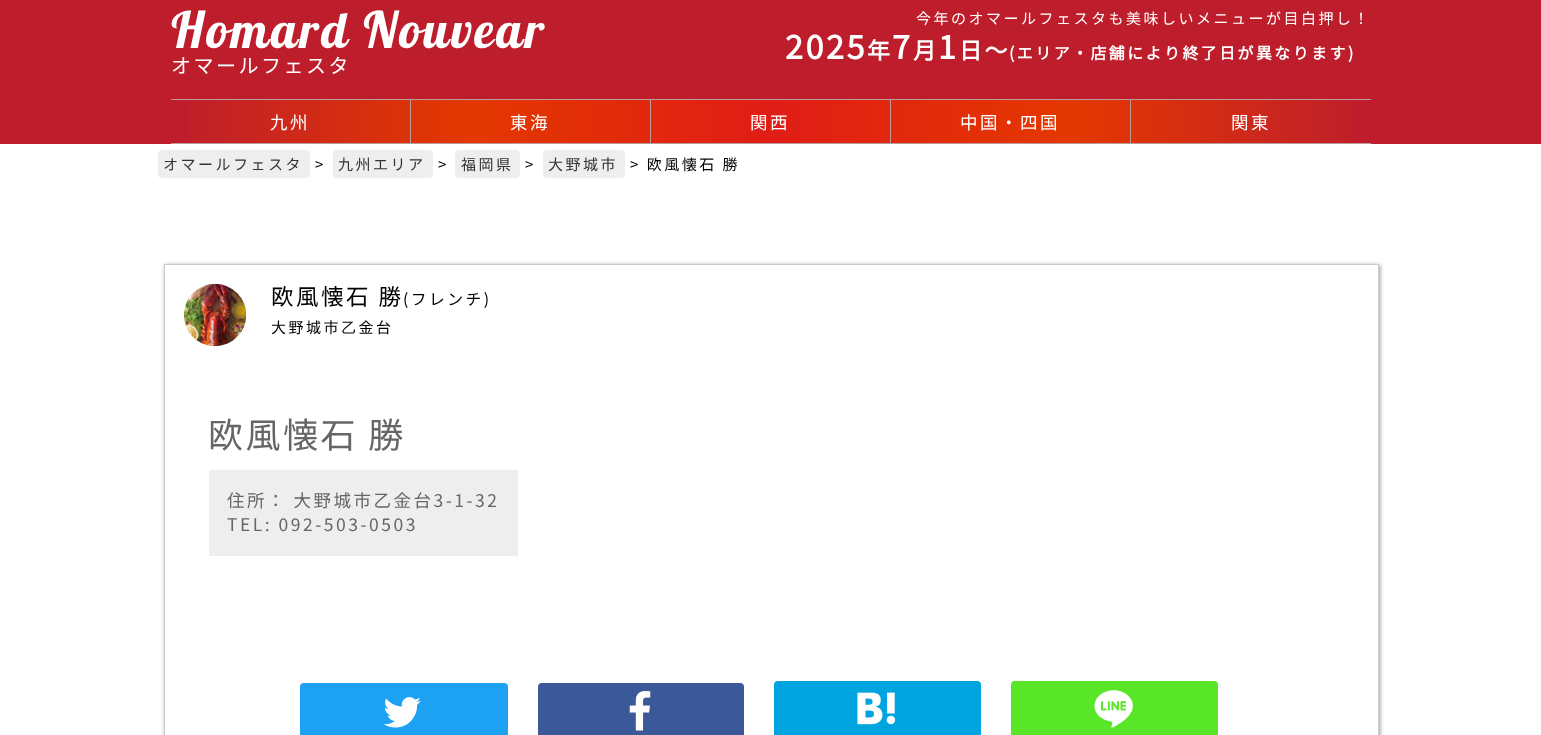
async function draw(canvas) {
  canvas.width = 1541
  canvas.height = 735
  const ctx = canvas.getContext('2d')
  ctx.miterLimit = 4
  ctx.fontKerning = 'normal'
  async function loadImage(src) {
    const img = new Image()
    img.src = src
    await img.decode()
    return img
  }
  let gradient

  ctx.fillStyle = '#be1e2c'
  ctx.fillRect(0, 0, 1541, 735)
  ctx.letterSpacing = '2.5px'
  ctx.font = '50px Lobster'
  ctx.fillStyle = '#fff'
  ctx.fillText('Homard Nouvear', 171, 48)
  ctx.font = '100 20px Noto Sans JP'
  ctx.fillText('オマールフェスタ', 171, 73)
  ctx.font = '100 15px Noto Sans JP'
  ctx.fillText('今年のオマールフェスタも美味しいメニューが目白押し！', 916, 24)
  ctx.font = 'bold 32.5px Noto Sans JP'
  ctx.fillText('2025', 785, 59)
  ctx.font = 'bold 23px Noto Sans JP'
  ctx.fillText('年', 867, 59)
  ctx.font = 'bold 32.5px Noto Sans JP'
  ctx.fillText('7', 892, 59)
  ctx.font = 'bold 23px Noto Sans JP'
  ctx.fillText('月', 913, 59)
  ctx.font = 'bold 32.5px Noto Sans JP'
  ctx.fillText('1', 938, 59)
  ctx.font = 'bold 23px Noto Sans JP'
  ctx.fillText('日～', 959, 59)
  ctx.font = 'bold 15.9px Noto Sans JP'
  ctx.fillText('(エリア・店舗により終了日が異なります)', 1009, 59)
  gradient = ctx.createLinearGradient(171, 122, 1371, 122)
  gradient.addColorStop(0, '#be1e2c')
  gradient.addColorStop(0.25, '#e43800')
  gradient.addColorStop(0.5, '#e01d16')
  gradient.addColorStop(0.75, '#e43800')
  gradient.addColorStop(1, '#be1e2c')
  ctx.fillStyle = gradient
  ctx.fillRect(188, 100, 1166, 43)
  ctx.fillStyle = '#b99b9d'
  ctx.fillRect(171, 99, 1200, 1)
  ctx.fillRect(410, 100, 1, 44)
  ctx.fillRect(171, 143, 239, 1)
  ctx.font = '100 17.5px Noto Sans JP'
  ctx.fillStyle = '#fff'
  ctx.fillText('九州', 270, 129)
  ctx.fillStyle = '#b99b9d'
  ctx.fillRect(650, 100, 1, 44)
  ctx.fillRect(411, 143, 239, 1)
  ctx.fillStyle = '#fff'
  ctx.fillText('東海', 510, 129)
  ctx.fillStyle = '#b99b9d'
  ctx.fillRect(890, 100, 1, 44)
  ctx.fillRect(651, 143, 239, 1)
  ctx.fillStyle = '#fff'
  ctx.fillText('関西', 750, 129)
  ctx.fillStyle = '#b99b9d'
  ctx.fillRect(1130, 100, 1, 44)
  ctx.fillRect(891, 143, 239, 1)
  ctx.fillStyle = '#fff'
  ctx.fillText('中国・四国', 960, 129)
  ctx.fillStyle = '#b99b9d'
  ctx.fillRect(1131, 143, 240, 1)
  ctx.fillStyle = '#fff'
  ctx.fillText('関東', 1231, 129)
  ctx.fillRect(0, 144, 1541, 591)
  ctx.fillStyle = '#eee'
  ctx.beginPath()
  ctx.roundRect(158, 150, 152, 28, 4)
  ctx.fill()
  ctx.font = '100 15px Noto Sans JP'
  ctx.fillStyle = '#333'
  ctx.fillText('オマールフェスタ', 163, 170)
  ctx.fillStyle = '#000'
  ctx.fillText('>', 315, 170)
  ctx.fillStyle = '#eee'
  ctx.beginPath()
  ctx.roundRect(333, 150, 100, 28, 4)
  ctx.fill()
  ctx.fillStyle = '#333'
  ctx.fillText('九州エリア', 338, 170)
  ctx.fillStyle = '#000'
  ctx.fillText('>', 438, 170)
  ctx.fillStyle = '#eee'
  ctx.beginPath()
  ctx.roundRect(455, 150, 65, 28, 4)
  ctx.fill()
  ctx.fillStyle = '#333'
  ctx.fillText('福岡県', 461, 170)
  ctx.fillStyle = '#000'
  ctx.fillText('>', 525, 170)
  ctx.fillStyle = '#eee'
  ctx.beginPath()
  ctx.roundRect(543, 150, 82, 28, 4)
  ctx.fill()
  ctx.fillStyle = '#333'
  ctx.fillText('大野城市', 548, 170)
  ctx.fillStyle = '#000'
  ctx.fillText('> 欧風懐石 勝', 630, 170)
  ctx.save()
  ctx.beginPath()
  ctx.moveTo(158, 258)
  ctx.lineTo(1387, 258)
  ctx.lineTo(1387, 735)
  ctx.lineTo(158, 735)
  ctx.closePath()
  ctx.moveTo(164, 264)
  ctx.lineTo(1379, 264)
  ctx.lineTo(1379, 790)
  ctx.lineTo(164, 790)
  ctx.closePath()
  ctx.clip('evenodd')
  ctx.fillStyle = '#999'
  ctx.filter = 'blur(2px)'
  ctx.beginPath()
  ctx.rect(165, 265, 1215, 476)
  ctx.fill()
  ctx.filter = 'none'
  ctx.restore()
  ctx.strokeStyle = '#ccc'
  ctx.strokeRect(164.5, 264.5, 1214, 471)
  ctx.drawImage(await loadImage('image0.png'), 183, 283, 64, 64)
  ctx.font = '100 22.5px Noto Sans JP'
  ctx.fillText('欧風懐石 勝', 271, 305)
  ctx.font = '100 15.75px Noto Sans JP'
  ctx.fillText('(フレンチ)', 403, 305)
  ctx.font = '100 15px Noto Sans JP'
  ctx.fillText('大野城市乙金台', 271, 333)
  ctx.font = '100 35px Noto Sans JP'
  ctx.fillStyle = '#666'
  ctx.fillText('欧風懐石 勝', 208, 448)
  ctx.fillStyle = '#eee'
  ctx.fillRect(209, 470, 309, 86)
  ctx.font = '100 17.5px Noto Sans JP'
  ctx.fillStyle = '#666'
  ctx.fillText('住所： 大野城市乙金台3-1-32', 227, 507)
  ctx.fillText('TEL: 092-503-0503', 227, 531)
  ctx.fillStyle = '#1da1f2'
  ctx.beginPath()
  ctx.roundRect(300, 683, 208, 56, 4)
  ctx.fill()
  ctx.drawImage(await loadImage('image1.png'), 383, 697, 38, 31)
  ctx.fillStyle = '#3b5998'
  ctx.beginPath()
  ctx.roundRect(538, 683, 206, 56, 4)
  ctx.fill()
  ctx.drawImage(await loadImage('image2.png'), 629, 691, 22, 40)
  ctx.fillStyle = '#00a4de'
  ctx.beginPath()
  ctx.roundRect(774, 681, 207, 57, 4)
  ctx.fill()
  ctx.drawImage(await loadImage('image3.png'), 857, 692, 39, 33)
  ctx.fillStyle = '#5ae628'
  ctx.beginPath()
  ctx.roundRect(1011, 681, 207, 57, 4)
  ctx.fill()
  ctx.drawImage(await loadImage('image4.png'), 1094, 690, 39, 38)
}

draw(document.querySelector('canvas'))
